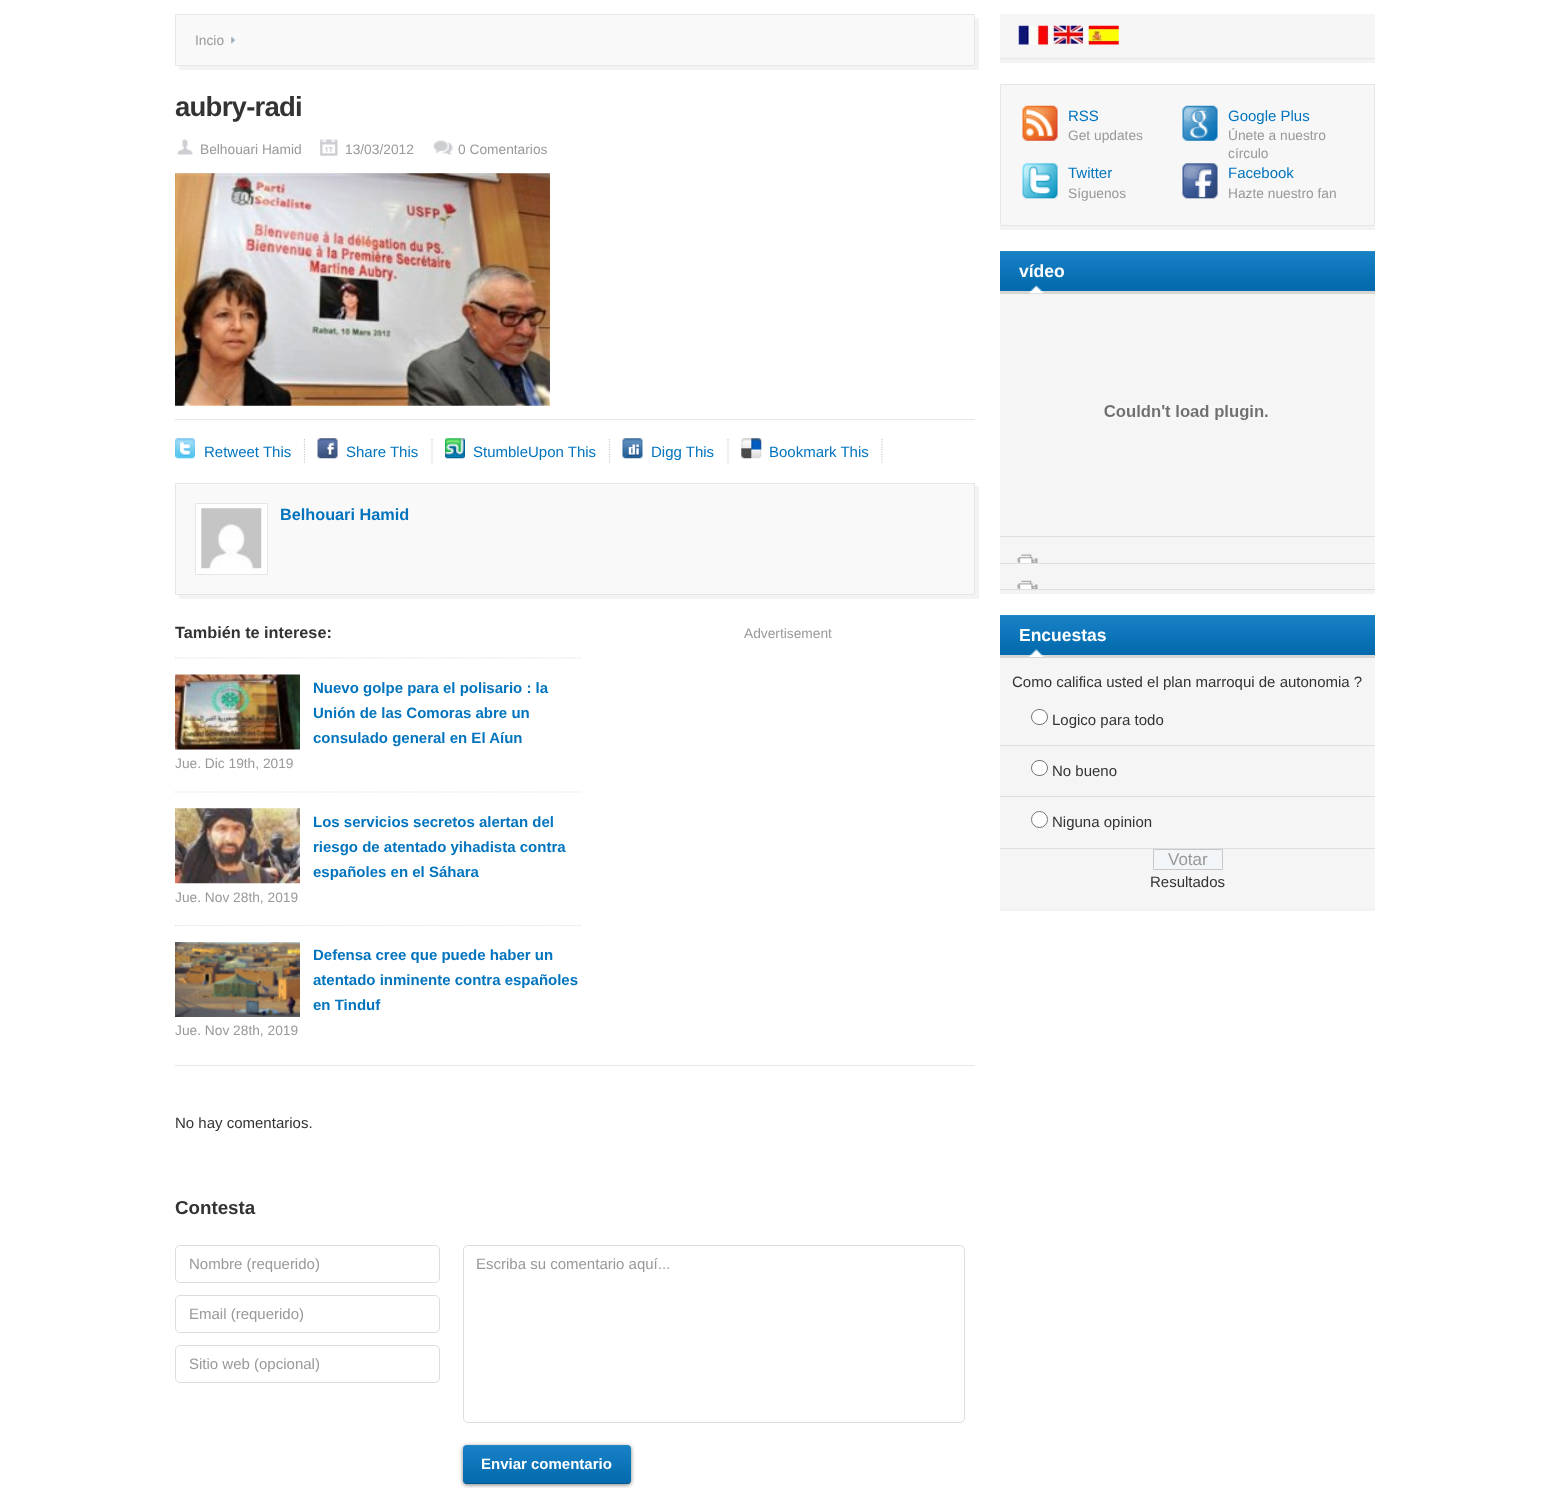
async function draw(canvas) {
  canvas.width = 1550
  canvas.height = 1488
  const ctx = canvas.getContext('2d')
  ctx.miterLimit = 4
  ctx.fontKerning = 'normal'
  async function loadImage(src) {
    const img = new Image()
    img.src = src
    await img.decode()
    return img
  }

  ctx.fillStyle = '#fff'
  ctx.fillRect(0, 0, 1550, 1488)
  ctx.fillStyle = '#f3f3f3'
  ctx.beginPath()
  ctx.moveTo(179, 66)
  ctx.lineTo(179, 70)
  ctx.lineTo(979, 70)
  ctx.lineTo(979, 18)
  ctx.lineTo(975, 18)
  ctx.lineTo(975, 66)
  ctx.closePath()
  ctx.fill()
  ctx.fillStyle = '#f9f9f9'
  ctx.beginPath()
  ctx.rect(175.5, 14.5, 799, 51)
  ctx.fill()
  ctx.strokeStyle = '#e6e6e6'
  ctx.stroke()
  ctx.font = '13.75px Liberation Sans'
  ctx.fillStyle = '#999'
  ctx.fillText('Incio', 195, 45)
  ctx.drawImage(await loadImage('image0.png'), 231, 36, 5, 8)
  ctx.letterSpacing = '-0.75px'
  ctx.font = 'bold 27.5px Liberation Sans'
  ctx.fillStyle = '#333'
  ctx.fillText('aubry-radi', 175, 116)
  ctx.drawImage(await loadImage('image1.png'), 177, 139, 16, 16)
  ctx.letterSpacing = '0px'
  ctx.font = '13.75px Liberation Sans'
  ctx.fillStyle = '#999'
  ctx.fillText('Belhouari Hamid', 200, 154)
  ctx.drawImage(await loadImage('image2.png'), 320, 139, 18, 17)
  ctx.fillText('13/03/2012', 345, 154)
  ctx.drawImage(await loadImage('image3.png'), 433, 140, 20, 15)
  ctx.fillText('0 Comentarios', 458, 154)
  ctx.drawImage(await loadImage('image4.png'), 175, 173, 375, 233)
  ctx.fillStyle = '#e6e6e6'
  ctx.fillRect(175, 419, 800, 1)
  ctx.drawImage(await loadImage('image5.png'), 175, 438, 20, 21)
  ctx.beginPath()
  ctx.moveTo(304.5, 439)
  ctx.lineTo(304.5, 464)
  ctx.strokeStyle = '#ccc'
  ctx.lineWidth = 1.2
  ctx.setLineDash([1.25, 1.25])
  ctx.stroke()
  ctx.font = '15px Liberation Sans'
  ctx.fillStyle = '#0274be'
  ctx.fillText('Retweet This', 204, 457)
  ctx.drawImage(await loadImage('image6.png'), 317, 438, 21, 21)
  ctx.beginPath()
  ctx.moveTo(432, 439)
  ctx.lineTo(432, 464)
  ctx.stroke()
  ctx.fillText('Share This', 346, 457)
  ctx.drawImage(await loadImage('image7.png'), 445, 438, 20, 21)
  ctx.beginPath()
  ctx.moveTo(609.5, 439)
  ctx.lineTo(609.5, 464)
  ctx.stroke()
  ctx.fillText('StumbleUpon This', 473, 457)
  ctx.drawImage(await loadImage('image8.png'), 622, 438, 21, 21)
  ctx.beginPath()
  ctx.moveTo(728, 439)
  ctx.lineTo(728, 464)
  ctx.stroke()
  ctx.fillText('Digg This', 651, 457)
  ctx.drawImage(await loadImage('image9.png'), 741, 438, 21, 21)
  ctx.beginPath()
  ctx.moveTo(882, 439)
  ctx.lineTo(882, 464)
  ctx.stroke()
  ctx.fillText('Bookmark This', 769, 457)
  ctx.fillStyle = '#f3f3f3'
  ctx.beginPath()
  ctx.moveTo(179, 595)
  ctx.lineTo(179, 599)
  ctx.lineTo(979, 599)
  ctx.lineTo(979, 486)
  ctx.lineTo(975, 486)
  ctx.lineTo(975, 595)
  ctx.closePath()
  ctx.fill()
  ctx.fillStyle = '#f9f9f9'
  ctx.beginPath()
  ctx.rect(175.5, 483.5, 799, 111)
  ctx.fill()
  ctx.strokeStyle = '#e6e6e6'
  ctx.lineWidth = 1
  ctx.setLineDash([])
  ctx.stroke()
  ctx.fillStyle = '#fff'
  ctx.beginPath()
  ctx.rect(195.5, 503.5, 72, 71)
  ctx.fill()
  ctx.stroke()
  ctx.drawImage(await loadImage('image10.png'), 201, 508, 61, 61)
  ctx.font = 'bold 16.25px Liberation Sans'
  ctx.fillStyle = '#0274be'
  ctx.fillText('Belhouari Hamid', 280, 520)
  ctx.fillStyle = '#e6e6e6'
  ctx.fillRect(175, 1065, 800, 1)
  ctx.fillStyle = '#333'
  ctx.fillText('También te interese:', 175, 638)
  ctx.beginPath()
  ctx.moveTo(175, 658)
  ctx.lineTo(581, 658)
  ctx.strokeStyle = '#ddd'
  ctx.lineWidth = 1.2
  ctx.setLineDash([1.25, 1.25])
  ctx.stroke()
  ctx.drawImage(await loadImage('image11.png'), 175, 674, 125, 76)
  ctx.font = 'bold 15px Liberation Sans'
  ctx.fillStyle = '#0274be'
  ctx.fillText('Nuevo golpe para el polisario : la', 313, 693)
  ctx.fillText('Unión de las Comoras abre un', 313, 718)
  ctx.fillText('consulado general en El Aíun', 313, 743)
  ctx.font = '13.75px Liberation Sans'
  ctx.fillStyle = '#999'
  ctx.fillText('Jue. Dic 19th, 2019', 175, 768)
  ctx.beginPath()
  ctx.moveTo(175, 792)
  ctx.lineTo(581, 792)
  ctx.stroke()
  ctx.drawImage(await loadImage('image12.png'), 175, 808, 125, 76)
  ctx.font = 'bold 15px Liberation Sans'
  ctx.fillStyle = '#0274be'
  ctx.fillText('Los servicios secretos alertan del', 313, 827)
  ctx.fillText('riesgo de atentado yihadista contra', 313, 852)
  ctx.fillText('españoles en el Sáhara', 313, 877)
  ctx.font = '13.75px Liberation Sans'
  ctx.fillStyle = '#999'
  ctx.fillText('Jue. Nov 28th, 2019', 175, 902)
  ctx.beginPath()
  ctx.moveTo(175, 925.5)
  ctx.lineTo(581, 925.5)
  ctx.stroke()
  ctx.drawImage(await loadImage('image13.png'), 175, 942, 125, 75)
  ctx.font = 'bold 15px Liberation Sans'
  ctx.fillStyle = '#0274be'
  ctx.fillText('Defensa cree que puede haber un', 313, 960)
  ctx.fillText('atentado inminente contra españoles', 313, 985)
  ctx.fillText('en Tinduf', 313, 1010)
  ctx.font = '13.75px Liberation Sans'
  ctx.fillStyle = '#999'
  ctx.fillText('Jue. Nov 28th, 2019', 175, 1035)
  ctx.fillText('Advertisement', 744, 638)
  ctx.font = '15px Liberation Sans'
  ctx.fillStyle = '#333'
  ctx.fillText('No hay comentarios.', 175, 1128)
  ctx.font = 'bold 18.75px Liberation Sans'
  ctx.fillText('Contesta', 175, 1214)
  ctx.beginPath()
  ctx.roundRect(175.5, 1245.5, 264, 37, 4.5)
  ctx.lineWidth = 1
  ctx.setLineDash([])
  ctx.stroke()
  ctx.font = '15px Liberation Sans'
  ctx.fillStyle = '#999'
  ctx.fillText('Nombre (requerido)', 189, 1269)
  ctx.beginPath()
  ctx.roundRect(175.5, 1295.5, 264, 37, 4.5)
  ctx.stroke()
  ctx.fillText('Email (requerido)', 189, 1319)
  ctx.beginPath()
  ctx.roundRect(175.5, 1345.5, 264, 37, 4.5)
  ctx.stroke()
  ctx.fillText('Sitio web (opcional)', 189, 1369)
  ctx.beginPath()
  ctx.roundRect(463.5, 1245.5, 501, 177, 4.5)
  ctx.stroke()
  ctx.fillText('Escriba su comentario aquí...', 476, 1269)
  ctx.fillStyle = '#00000080'
  ctx.filter = 'blur(2px)'
  ctx.beginPath()
  ctx.roundRect(463, 1446, 168, 39, 4)
  ctx.fill()
  ctx.filter = 'none'
  ctx.fillStyle = '#0274be'
  ctx.beginPath()
  ctx.roundRect(463, 1445, 168, 39, 4)
  ctx.fill()
  ctx.drawImage(await loadImage('image14.png'), 462, 1445, 169, 38)
  ctx.fillStyle = '#00000040'
  ctx.fillRect(465, 1483, 165, 1)
  ctx.font = 'bold 15px Liberation Sans'
  ctx.fillStyle = '#fff'
  ctx.fillText('Enviar comentario', 481, 1469)
  ctx.fillStyle = '#f3f3f3'
  ctx.fillRect(1000, 59, 375, 4)
  ctx.fillStyle = '#f5f5f5'
  ctx.fillRect(1000, 14, 375, 44)
  ctx.fillStyle = '#e6e6e6'
  ctx.fillRect(1000, 58, 375, 1)
  ctx.drawImage(await loadImage('image15.png'), 1018, 25, 101, 20)
  ctx.fillStyle = '#f3f3f3'
  ctx.fillRect(1000, 226, 375, 4)
  ctx.fillStyle = '#f7f7f7'
  ctx.beginPath()
  ctx.rect(1000.5, 84.5, 374, 141)
  ctx.fill()
  ctx.strokeStyle = '#e6e6e6'
  ctx.stroke()
  ctx.drawImage(await loadImage('image16.png'), 1022, 105, 36, 36)
  ctx.font = '15px Liberation Sans'
  ctx.fillStyle = '#0274be'
  ctx.fillText('RSS', 1068, 121)
  ctx.font = '13.75px Liberation Sans'
  ctx.fillStyle = '#999'
  ctx.fillText('Get updates', 1068, 140)
  ctx.drawImage(await loadImage('image17.png'), 1182, 105, 36, 36)
  ctx.font = '15px Liberation Sans'
  ctx.fillStyle = '#0274be'
  ctx.fillText('Google Plus', 1228, 121)
  ctx.font = '13.75px Liberation Sans'
  ctx.fillStyle = '#999'
  ctx.fillText('Únete a nuestro', 1228, 140)
  ctx.fillText('círculo', 1228, 158)
  ctx.drawImage(await loadImage('image18.png'), 1022, 163, 36, 36)
  ctx.font = '15px Liberation Sans'
  ctx.fillStyle = '#0274be'
  ctx.fillText('Twitter', 1068, 178)
  ctx.font = '13.75px Liberation Sans'
  ctx.fillStyle = '#999'
  ctx.fillText('Síguenos', 1068, 198)
  ctx.drawImage(await loadImage('image19.png'), 1182, 163, 36, 36)
  ctx.font = '15px Liberation Sans'
  ctx.fillStyle = '#0274be'
  ctx.fillText('Facebook', 1228, 178)
  ctx.font = '13.75px Liberation Sans'
  ctx.fillStyle = '#999'
  ctx.fillText('Hazte nuestro fan', 1228, 198)
  ctx.fillStyle = '#f3f3f3'
  ctx.fillRect(1000, 590, 375, 4)
  ctx.fillStyle = '#f5f5f5'
  ctx.fillRect(1000, 294, 375, 295)
  ctx.fillStyle = '#0274be'
  ctx.fillRect(1000, 251, 375, 40)
  ctx.drawImage(await loadImage('image20.png'), 1000, 251, 375, 40)
  ctx.fillStyle = '#d5d5d5'
  ctx.fillRect(1000, 291, 375, 3)
  ctx.drawImage(await loadImage('image21.png'), 1028, 285, 16, 9)
  ctx.font = 'bold 17.5px Liberation Sans'
  ctx.fillStyle = '#fff'
  ctx.fillText('vídeo', 1019, 277)
  ctx.fillStyle = '#dfdfdf'
  ctx.fillRect(1000, 536, 375, 1)
  ctx.drawImage(await loadImage('image22.png'), 1104, 405, 164, 15)
  ctx.drawImage(await loadImage('image23.png'), 1017, 554, 21, 9)
  ctx.fillRect(1000, 563, 375, 1)
  ctx.drawImage(await loadImage('image24.png'), 1017, 580, 21, 9)
  ctx.fillRect(1000, 589, 375, 1)
  ctx.fillStyle = '#f3f3f3'
  ctx.fillRect(1000, 908, 375, 3)
  ctx.fillStyle = '#f5f5f5'
  ctx.fillRect(1000, 658, 375, 250)
  ctx.fillStyle = '#0274be'
  ctx.fillRect(1000, 615, 375, 40)
  ctx.drawImage(await loadImage('image25.png'), 1000, 615, 375, 40)
  ctx.fillStyle = '#d5d5d5'
  ctx.fillRect(1000, 655, 375, 3)
  ctx.drawImage(await loadImage('image26.png'), 1028, 649, 16, 8)
  ctx.fillStyle = '#fff'
  ctx.fillText('Encuestas', 1019, 641)
  ctx.font = '15px Liberation Sans'
  ctx.fillStyle = '#333'
  ctx.fillText('Como califica usted el plan marroqui de autonomia ?', 1012, 687)
  ctx.fillStyle = '#dfdfdf'
  ctx.fillRect(1000, 745, 375, 1)
  ctx.fillStyle = '#fff'
  ctx.beginPath()
  ctx.roundRect(1031.5, 709.5, 16, 15, 7.5)
  ctx.fill()
  ctx.strokeStyle = '#767676'
  ctx.stroke()
  ctx.fillStyle = '#333'
  ctx.fillText('Logico para todo', 1052, 725)
  ctx.fillStyle = '#dfdfdf'
  ctx.fillRect(1000, 796, 375, 1)
  ctx.fillStyle = '#fff'
  ctx.beginPath()
  ctx.roundRect(1031.5, 760.5, 16, 15, 7.5)
  ctx.fill()
  ctx.stroke()
  ctx.fillStyle = '#333'
  ctx.fillText('No bueno', 1052, 776)
  ctx.fillStyle = '#dfdfdf'
  ctx.fillRect(1000, 848, 375, 1)
  ctx.fillStyle = '#fff'
  ctx.beginPath()
  ctx.arc(1039.5, 819.5, 8, 0, 2 * Math.PI)
  ctx.fill()
  ctx.stroke()
  ctx.fillStyle = '#333'
  ctx.fillText('Niguna opinion', 1052, 827)
  ctx.fillStyle = '#f3f6f8'
  ctx.beginPath()
  ctx.rect(1153.5, 849.5, 69, 20)
  ctx.fill()
  ctx.strokeStyle = '#c8c8c8'
  ctx.stroke()
  ctx.font = '17px Liberation Sans'
  ctx.fillStyle = '#999'
  ctx.fillText('Votar', 1168, 865)
  ctx.font = '15px Liberation Sans'
  ctx.fillStyle = '#333'
  ctx.fillText('Resultados', 1150, 887)
}

draw(document.querySelector('canvas'))
